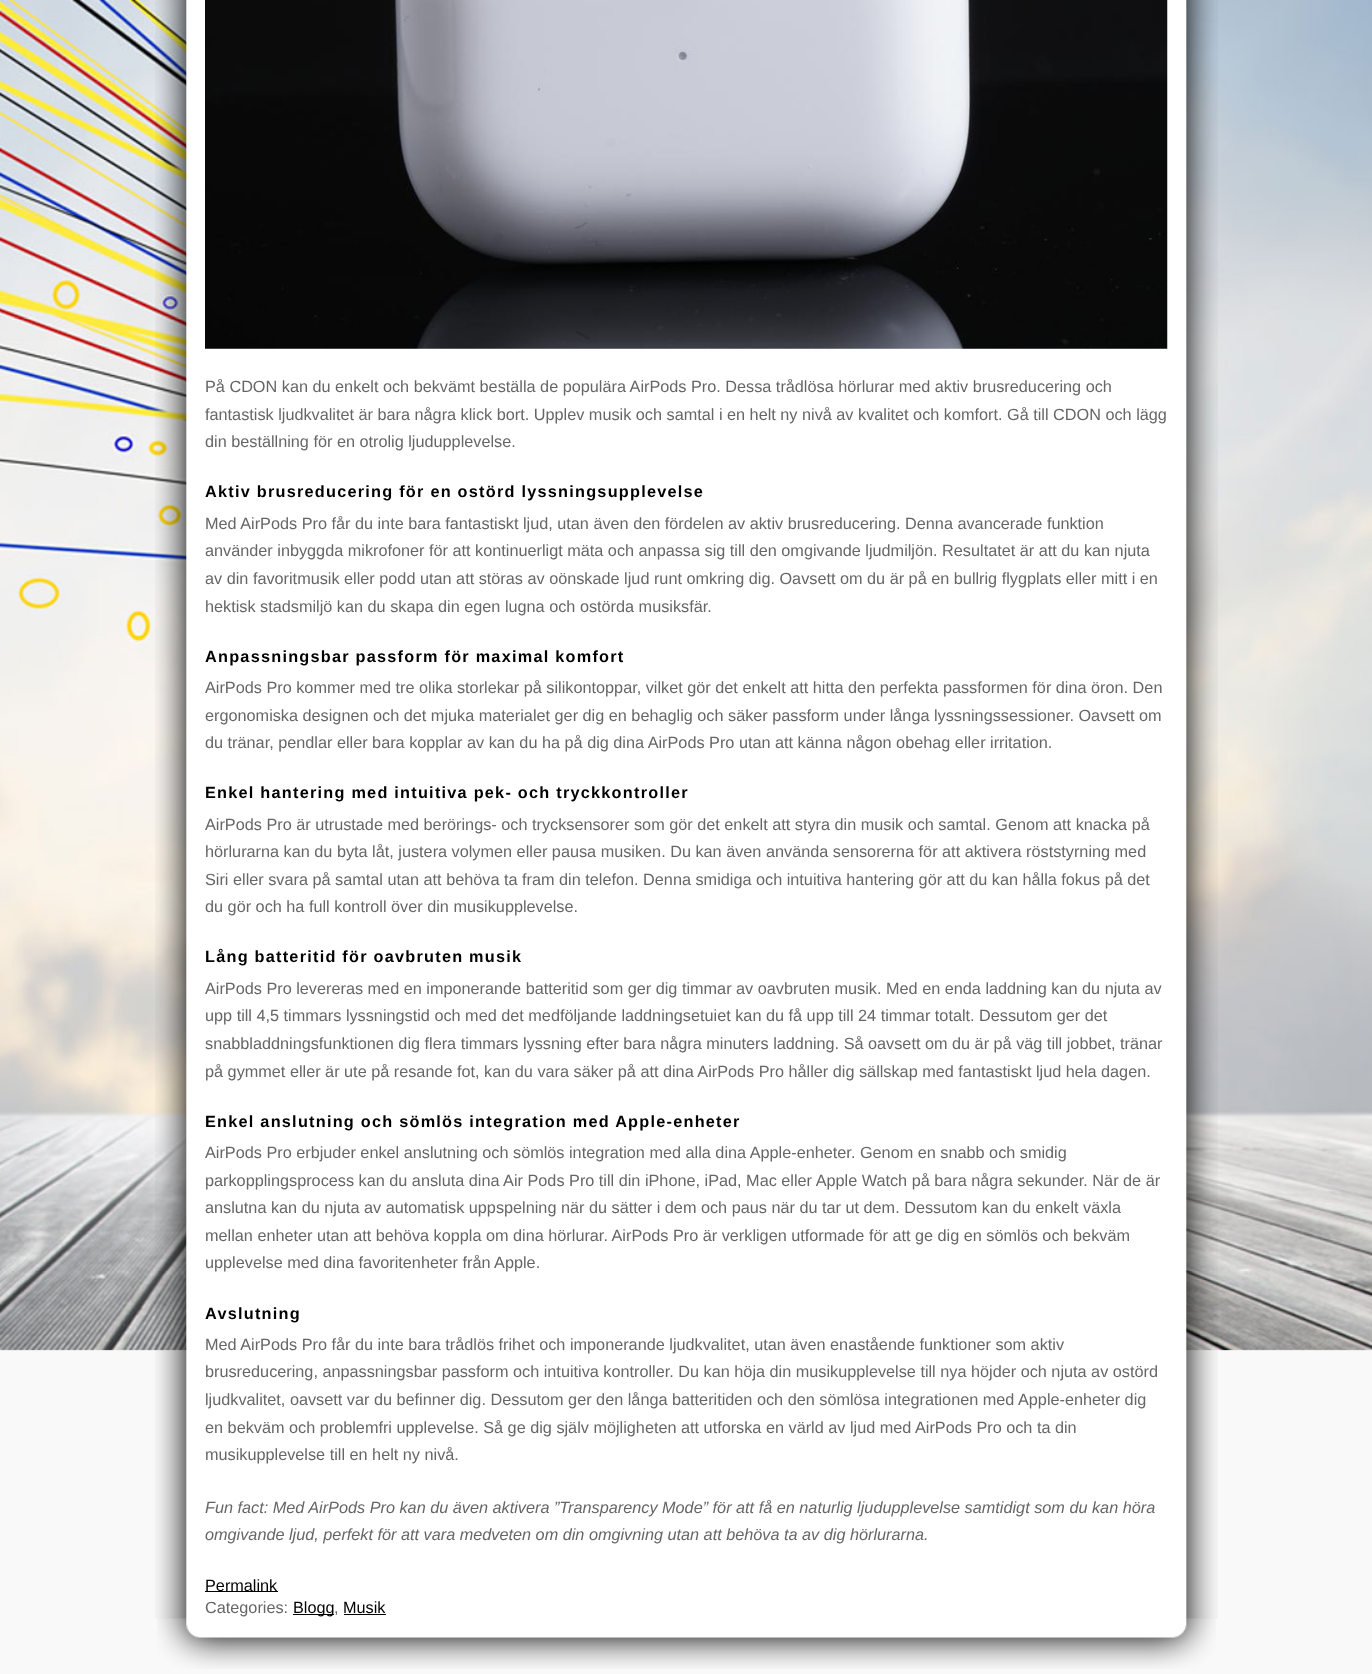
async function draw(canvas) {
  canvas.width = 1372
  canvas.height = 1674
  const ctx = canvas.getContext('2d')
  ctx.miterLimit = 4
  ctx.fontKerning = 'normal'
  async function loadImage(src) {
    const img = new Image()
    img.src = src
    await img.decode()
    return img
  }

  ctx.fillStyle = '#f9f9f9'
  ctx.fillRect(0, 0, 1372, 1674)
  ctx.drawImage(await loadImage('image0.png'), 0, 0, 1372, 1351)
  ctx.drawImage(await loadImage('image1.png'), 155, 0, 1063, 1619)
  ctx.drawImage(await loadImage('image2.png'), 205, 0, 963, 349)
  ctx.font = '16.25px Liberation Sans'
  ctx.fillStyle = '#666'
  ctx.fillText('På CDON kan du enkelt och bekvämt beställa de populära AirPods Pro. Dessa trådlösa hörlurar med aktiv brusreducering och', 205, 392)
  ctx.fillText('fantastisk ljudkvalitet är bara några klick bort. Upplev musik och samtal i en helt ny nivå av kvalitet och komfort. Gå till CDON och lägg', 205, 420)
  ctx.fillText('din beställning för en otrolig ljudupplevelse.', 205, 447)
  ctx.letterSpacing = '1.25px'
  ctx.font = 'bold 16.25px Liberation Sans'
  ctx.fillStyle = '#000'
  ctx.fillText('Aktiv brusreducering för en ostörd lyssningsupplevelse', 205, 497)
  ctx.letterSpacing = '0px'
  ctx.font = '16.25px Liberation Sans'
  ctx.fillStyle = '#666'
  ctx.fillText('Med AirPods Pro får du inte bara fantastiskt ljud, utan även den fördelen av aktiv brusreducering. Denna avancerade funktion', 205, 529)
  ctx.fillText('använder inbyggda mikrofoner för att kontinuerligt mäta och anpassa sig till den omgivande ljudmiljön. Resultatet är att du kan njuta', 205, 556)
  ctx.fillText('av din favoritmusik eller podd utan att störas av oönskade ljud runt omkring dig. Oavsett om du är på en bullrig flygplats eller mitt i en', 205, 584)
  ctx.fillText('hektisk stadsmiljö kan du skapa din egen lugna och ostörda musiksfär.', 205, 612)
  ctx.letterSpacing = '1.25px'
  ctx.font = 'bold 16.25px Liberation Sans'
  ctx.fillStyle = '#000'
  ctx.fillText('Anpassningsbar passform för maximal komfort', 205, 662)
  ctx.letterSpacing = '0px'
  ctx.font = '16.25px Liberation Sans'
  ctx.fillStyle = '#666'
  ctx.fillText('AirPods Pro kommer med tre olika storlekar på silikontoppar, vilket gör det enkelt att hitta den perfekta passformen för dina öron. Den', 205, 693)
  ctx.fillText('ergonomiska designen och det mjuka materialet ger dig en behaglig och säker passform under långa lyssningssessioner. Oavsett om', 205, 721)
  ctx.fillText('du tränar, pendlar eller bara kopplar av kan du ha på dig dina AirPods Pro utan att känna någon obehag eller irritation.', 205, 748)
  ctx.letterSpacing = '1.25px'
  ctx.font = 'bold 16.25px Liberation Sans'
  ctx.fillStyle = '#000'
  ctx.fillText('Enkel hantering med intuitiva pek- och tryckkontroller', 205, 798)
  ctx.letterSpacing = '0px'
  ctx.font = '16.25px Liberation Sans'
  ctx.fillStyle = '#666'
  ctx.fillText('AirPods Pro är utrustade med berörings- och trycksensorer som gör det enkelt att styra din musik och samtal. Genom att knacka på', 205, 830)
  ctx.fillText('hörlurarna kan du byta låt, justera volymen eller pausa musiken. Du kan även använda sensorerna för att aktivera röststyrning med', 205, 857)
  ctx.fillText('Siri eller svara på samtal utan att behöva ta fram din telefon. Denna smidiga och intuitiva hantering gör att du kan hålla fokus på det', 205, 885)
  ctx.fillText('du gör och ha full kontroll över din musikupplevelse.', 205, 912)
  ctx.letterSpacing = '1.25px'
  ctx.font = 'bold 16.25px Liberation Sans'
  ctx.fillStyle = '#000'
  ctx.fillText('Lång batteritid för oavbruten musik', 205, 962)
  ctx.letterSpacing = '0px'
  ctx.font = '16.25px Liberation Sans'
  ctx.fillStyle = '#666'
  ctx.fillText('AirPods Pro levereras med en imponerande batteritid som ger dig timmar av oavbruten musik. Med en enda laddning kan du njuta av', 205, 994)
  ctx.fillText('upp till 4,5 timmars lyssningstid och med det medföljande laddningsetuiet kan du få upp till 24 timmar totalt. Dessutom ger det', 205, 1021)
  ctx.fillText('snabbladdningsfunktionen dig flera timmars lyssning efter bara några minuters laddning. Så oavsett om du är på väg till jobbet, tränar', 205, 1049)
  ctx.fillText('på gymmet eller är ute på resande fot, kan du vara säker på att dina AirPods Pro håller dig sällskap med fantastiskt ljud hela dagen.', 205, 1077)
  ctx.letterSpacing = '1.25px'
  ctx.font = 'bold 16.25px Liberation Sans'
  ctx.fillStyle = '#000'
  ctx.fillText('Enkel anslutning och sömlös integration med Apple-enheter', 205, 1127)
  ctx.letterSpacing = '0px'
  ctx.font = '16.25px Liberation Sans'
  ctx.fillStyle = '#666'
  ctx.fillText('AirPods Pro erbjuder enkel anslutning och sömlös integration med alla dina Apple-enheter. Genom en snabb och smidig', 205, 1158)
  ctx.fillText('parkopplingsprocess kan du ansluta dina Air Pods Pro till din iPhone, iPad, Mac eller Apple Watch på bara några sekunder. När de är', 205, 1186)
  ctx.fillText('anslutna kan du njuta av automatisk uppspelning när du sätter i dem och paus när du tar ut dem. Dessutom kan du enkelt växla', 205, 1213)
  ctx.fillText('mellan enheter utan att behöva koppla om dina hörlurar. AirPods Pro är verkligen utformade för att ge dig en sömlös och bekväm', 205, 1241)
  ctx.fillText('upplevelse med dina favoritenheter från Apple.', 205, 1268)
  ctx.letterSpacing = '1.25px'
  ctx.font = 'bold 16.25px Liberation Sans'
  ctx.fillStyle = '#000'
  ctx.fillText('Avslutning', 205, 1319)
  ctx.letterSpacing = '0px'
  ctx.font = '16.25px Liberation Sans'
  ctx.fillStyle = '#666'
  ctx.fillText('Med AirPods Pro får du inte bara trådlös frihet och imponerande ljudkvalitet, utan även enastående funktioner som aktiv', 205, 1350)
  ctx.fillText('brusreducering, anpassningsbar passform och intuitiva kontroller. Du kan höja din musikupplevelse till nya höjder och njuta av ostörd', 205, 1377)
  ctx.fillText('ljudkvalitet, oavsett var du befinner dig. Dessutom ger den långa batteritiden och den sömlösa integrationen med Apple-enheter dig', 205, 1405)
  ctx.fillText('en bekväm och problemfri upplevelse. Så ge dig själv möjligheten att utforska en värld av ljud med AirPods Pro och ta din', 205, 1433)
  ctx.fillText('musikupplevelse till en helt ny nivå.', 205, 1460)
  ctx.font = 'italic 16.25px Liberation Sans'
  ctx.fillText('Fun fact: Med AirPods Pro kan du även aktivera ”Transparency Mode” för att få en naturlig ljudupplevelse samtidigt som du kan höra', 205, 1513)
  ctx.fillText('omgivande ljud, perfekt för att vara medveten om din omgivning utan att behöva ta av dig hörlurarna.', 205, 1540)
  ctx.fillStyle = '#000'
  ctx.fillRect(205, 1591, 73, 1)
  ctx.font = '16.25px Liberation Sans'
  ctx.fillText('Permalink', 205, 1591)
  ctx.fillStyle = '#666'
  ctx.fillText('Categories:', 205, 1613)
  ctx.fillStyle = '#000'
  ctx.fillRect(293, 1614, 41, 1)
  ctx.fillText('Blogg', 293, 1613)
  ctx.fillStyle = '#666'
  ctx.fillText(',', 334, 1613)
  ctx.fillStyle = '#000'
  ctx.fillText('Musik', 343, 1613)
  ctx.fillRect(344, 1614, 42, 1)
  ctx.drawImage(await loadImage('image3.png'), 157, 1618, 1059, 51)
}

draw(document.querySelector('canvas'))
